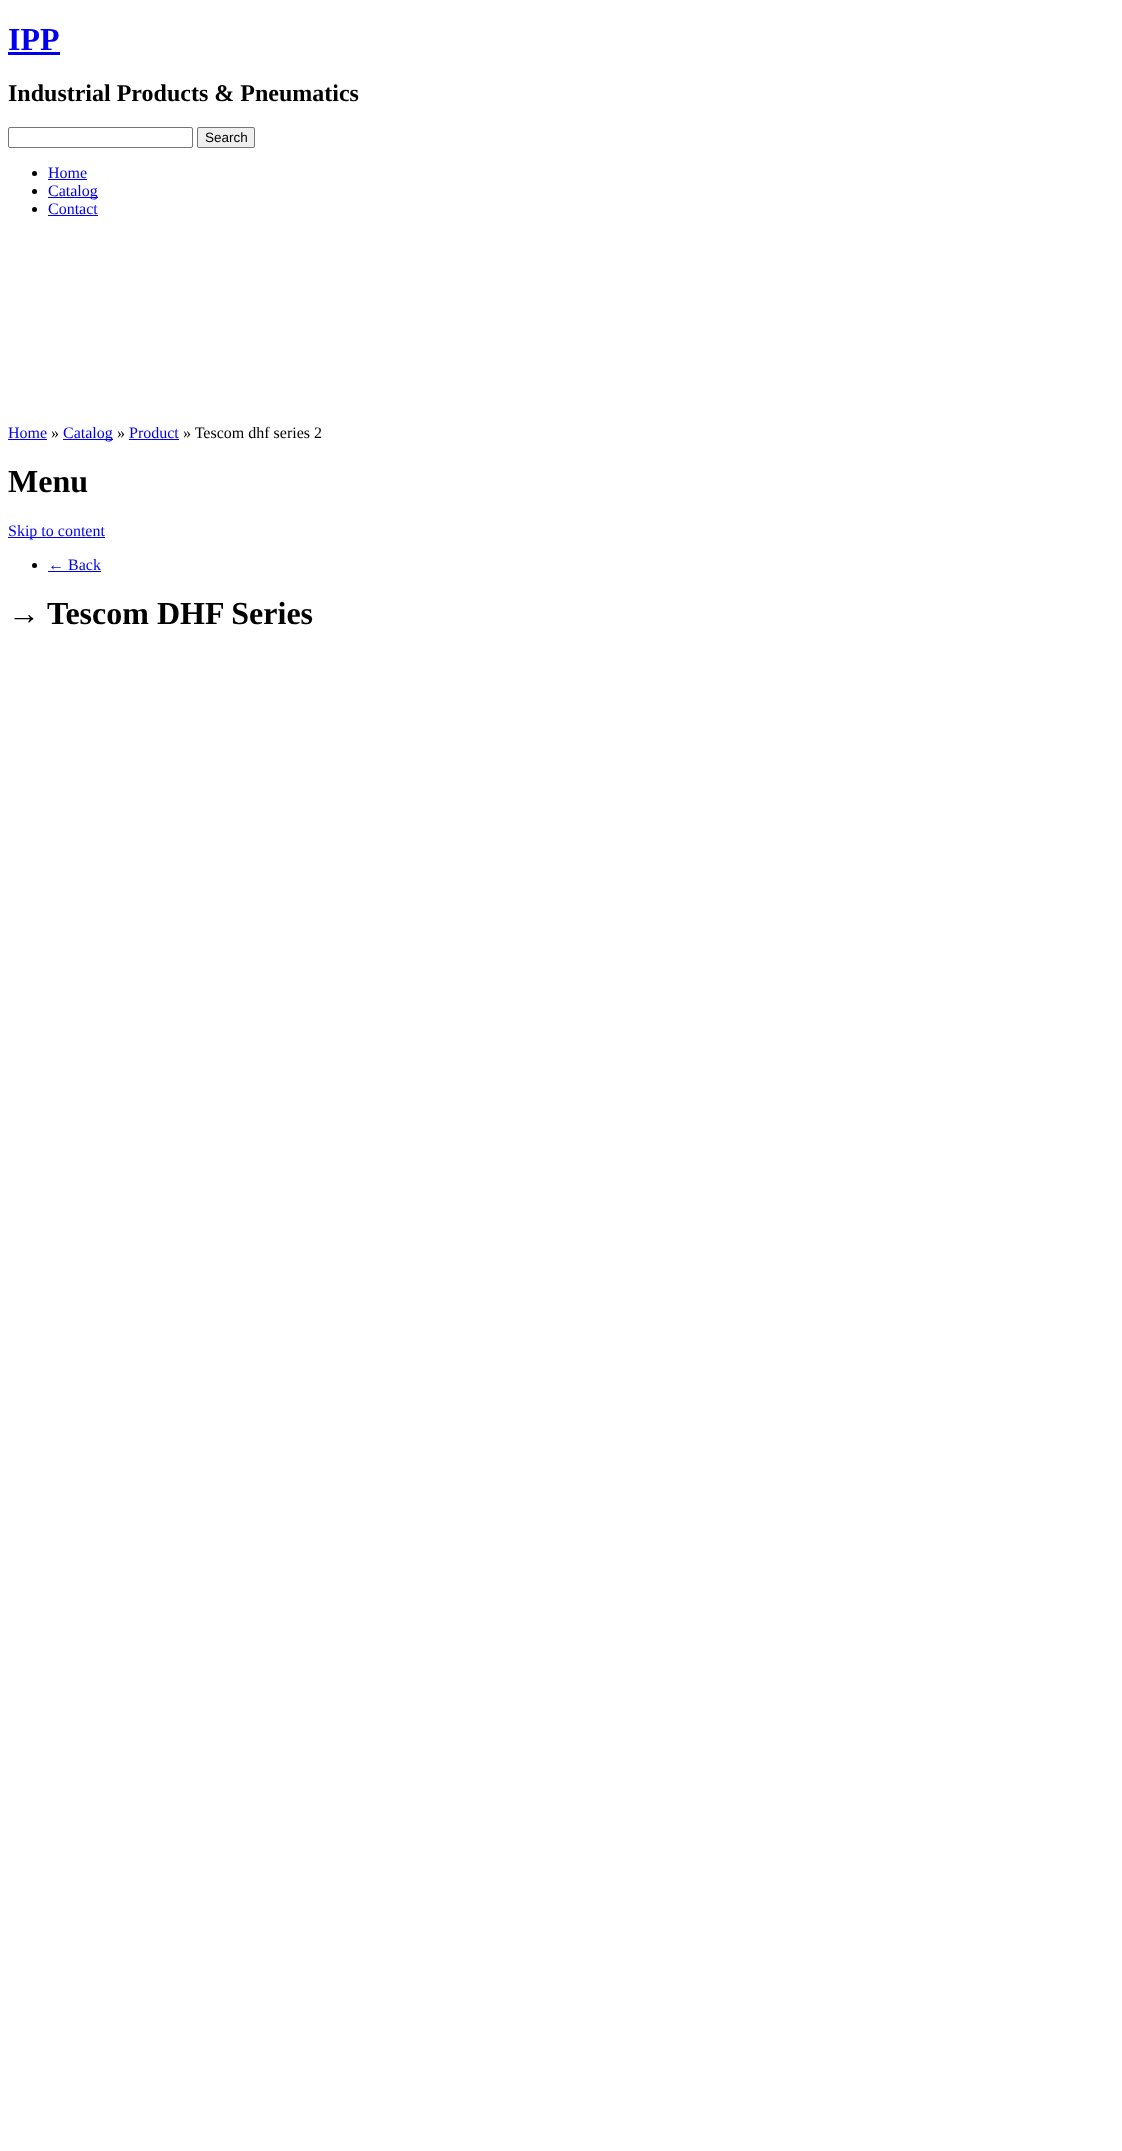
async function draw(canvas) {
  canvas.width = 1122
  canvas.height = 2151
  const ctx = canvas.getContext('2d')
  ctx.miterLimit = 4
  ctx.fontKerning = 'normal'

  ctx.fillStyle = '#fff'
  ctx.fillRect(0, 0, 1122, 2151)
  ctx.font = 'bold 32px Liberation Serif'
  ctx.fillStyle = '#00e'
  ctx.fillText('IPP', 8, 50)
  ctx.fillRect(8, 52, 52, 3)
  ctx.font = 'bold 24px Liberation Serif'
  ctx.fillStyle = '#000'
  ctx.fillText('Industrial Products & Pneumatics', 8, 101)
  ctx.beginPath()
  ctx.roundRect(8.5, 127.5, 184, 20, 1.5)
  ctx.strokeStyle = '#767676'
  ctx.stroke()
  ctx.fillStyle = '#efefef'
  ctx.beginPath()
  ctx.roundRect(197.5, 127.5, 57, 20, 1.5)
  ctx.fill()
  ctx.stroke()
  ctx.font = '13.5px Liberation Sans'
  ctx.fillStyle = '#000'
  ctx.fillText('Search', 205, 142)
  ctx.beginPath()
  ctx.arc(34.5, 173.5, 2.5, 0, 2 * Math.PI)
  ctx.fill()
  ctx.font = '16px Liberation Serif'
  ctx.fillStyle = '#00e'
  ctx.fillText('Home', 48, 178)
  ctx.fillRect(48, 179, 39, 1)
  ctx.fillStyle = '#000'
  ctx.beginPath()
  ctx.arc(34.5, 191.5, 2.5, 0, 2 * Math.PI)
  ctx.fill()
  ctx.fillStyle = '#00e'
  ctx.fillRect(48, 197, 50, 1)
  ctx.fillText('Catalog', 48, 196)
  ctx.fillStyle = '#000'
  ctx.beginPath()
  ctx.arc(34.5, 209.5, 2.5, 0, 2 * Math.PI)
  ctx.fill()
  ctx.fillStyle = '#00e'
  ctx.fillText('Contact', 48, 214)
  ctx.fillRect(48, 215, 50, 1)
  ctx.fillText('Home', 8, 438)
  ctx.fillRect(8, 439, 39, 1)
  ctx.fillStyle = '#000'
  ctx.fillText('»', 51, 438)
  ctx.fillStyle = '#00e'
  ctx.fillRect(63, 439, 50, 1)
  ctx.fillText('Catalog', 63, 438)
  ctx.fillStyle = '#000'
  ctx.fillText('»', 117, 438)
  ctx.fillStyle = '#00e'
  ctx.fillText('Product', 129, 438)
  ctx.fillRect(129, 439, 50, 1)
  ctx.fillStyle = '#000'
  ctx.fillText('» Tescom dhf series 2', 183, 438)
  ctx.font = 'bold 32px Liberation Serif'
  ctx.fillText('Menu', 8, 492)
  ctx.fillStyle = '#00e'
  ctx.fillRect(8, 537, 97, 1)
  ctx.font = '16px Liberation Serif'
  ctx.fillText('Skip to content', 8, 536)
  ctx.fillStyle = '#000'
  ctx.beginPath()
  ctx.arc(34.5, 565.5, 2.5, 0, 2 * Math.PI)
  ctx.fill()
  ctx.fillStyle = '#00e'
  ctx.fillText('← Back', 48, 570)
  ctx.fillRect(48, 571, 53, 1)
  ctx.font = 'bold 32px Liberation Serif'
  ctx.fillStyle = '#000'
  ctx.fillText('→', 8, 624)
  ctx.fillText('Tescom DHF Series', 47, 624)
}

draw(document.querySelector('canvas'))
